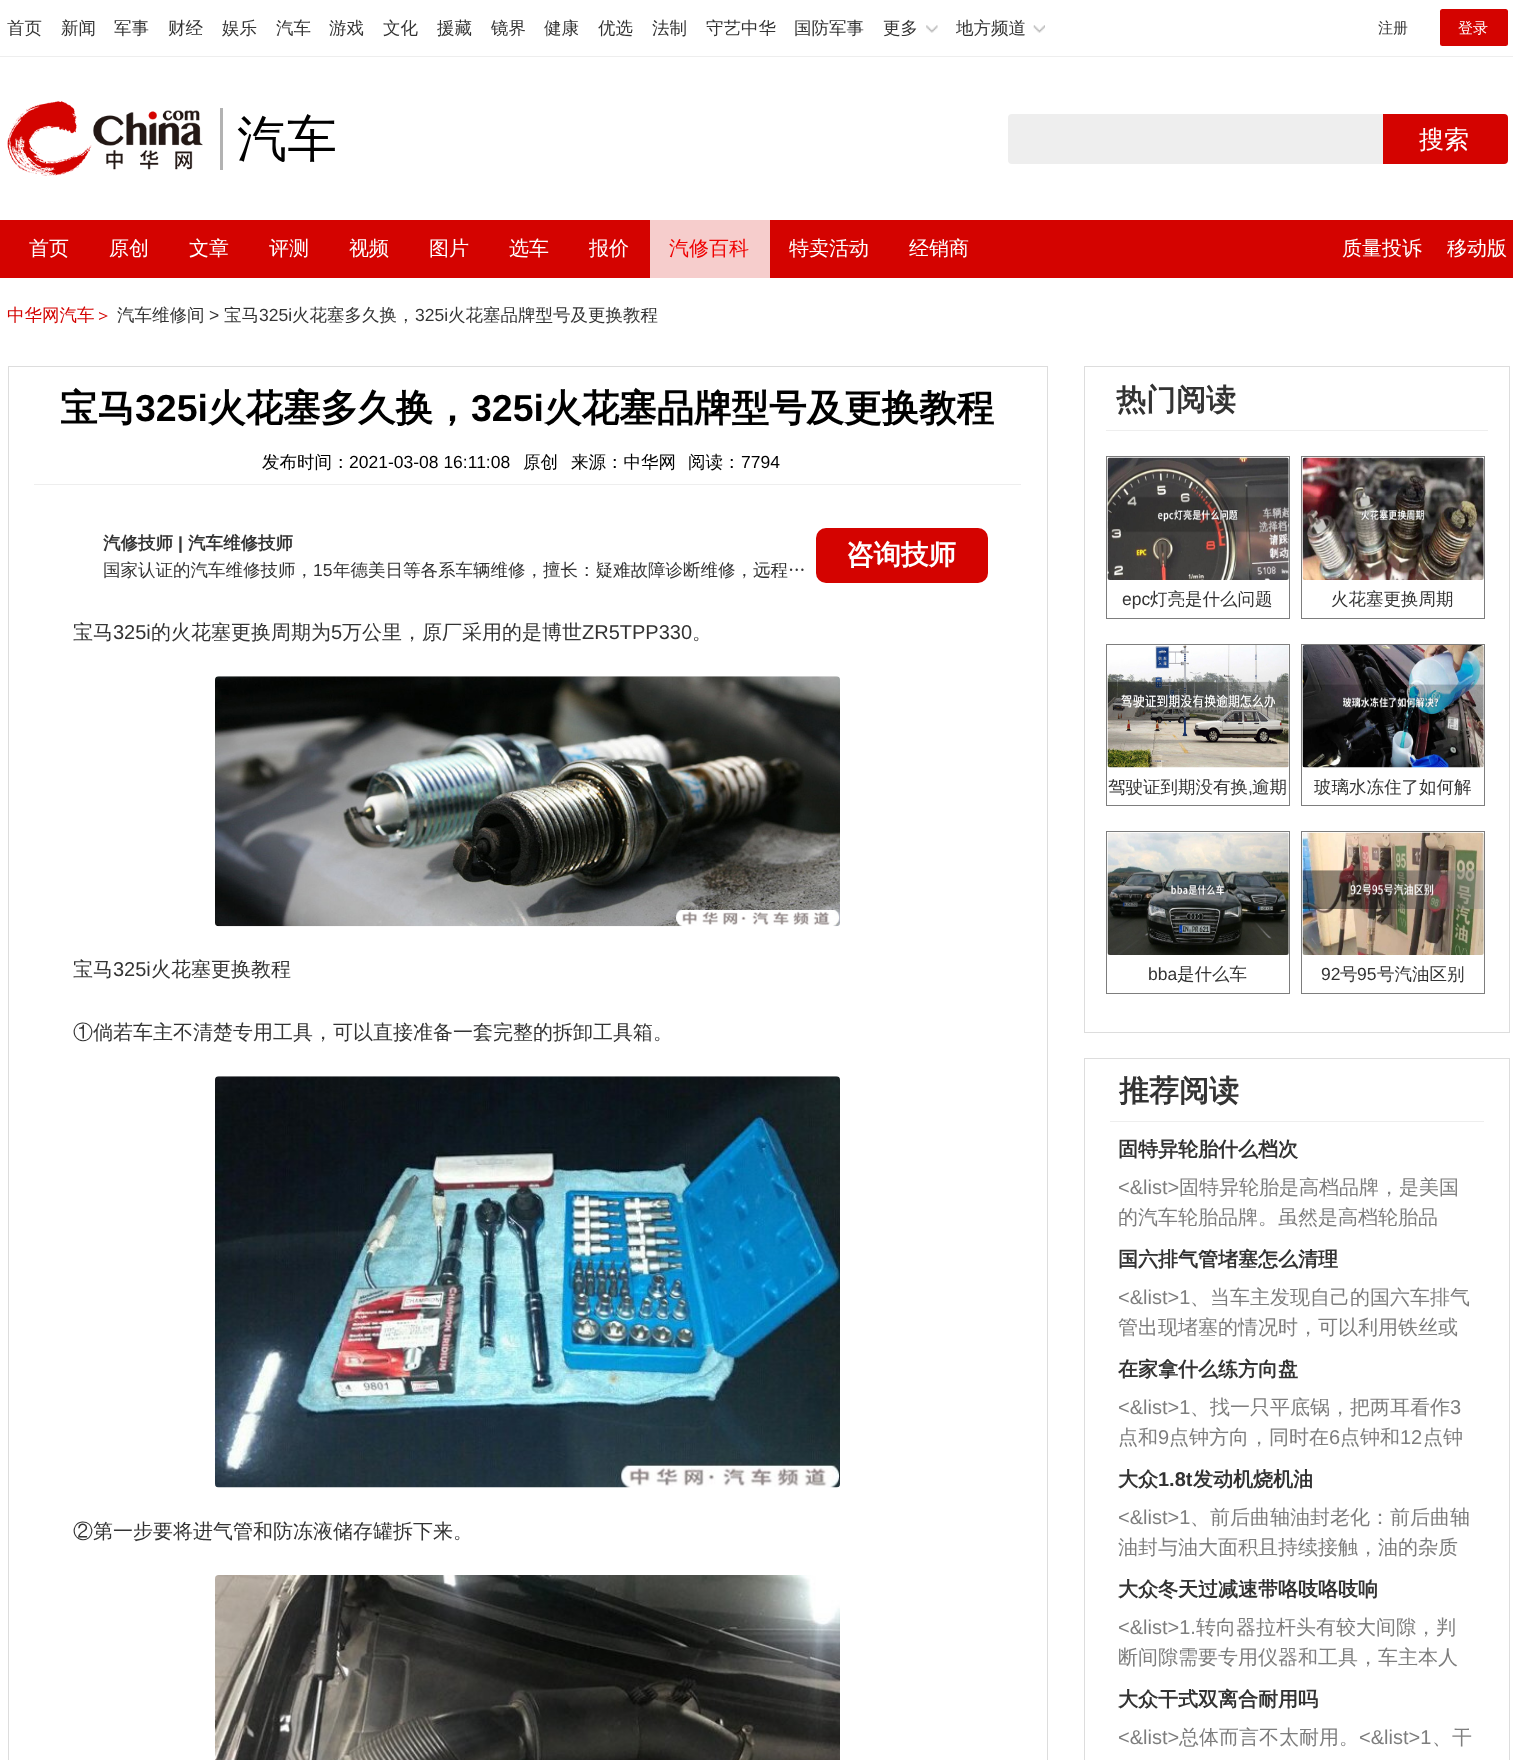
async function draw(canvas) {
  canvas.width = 1513
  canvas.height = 1760
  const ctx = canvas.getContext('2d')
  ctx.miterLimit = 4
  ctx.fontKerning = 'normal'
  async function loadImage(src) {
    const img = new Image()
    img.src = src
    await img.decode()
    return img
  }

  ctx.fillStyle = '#fff'
  ctx.fillRect(0, 0, 1513, 1760)
  ctx.fillStyle = '#eee'
  ctx.fillRect(0, 56, 1513, 1)
  ctx.font = '500 17.5px WenQuanYi Zen Hei'
  ctx.fillStyle = '#333'
  ctx.fillText('首页', 7, 34)
  ctx.fillText('新闻', 61, 34)
  ctx.fillText('军事', 114, 34)
  ctx.fillText('财经', 168, 34)
  ctx.fillText('娱乐', 222, 34)
  ctx.fillText('汽车', 276, 34)
  ctx.fillText('游戏', 329, 34)
  ctx.fillText('文化', 383, 34)
  ctx.fillText('援藏', 437, 34)
  ctx.fillText('镜界', 491, 34)
  ctx.fillText('健康', 544, 34)
  ctx.fillText('优选', 598, 34)
  ctx.fillText('法制', 652, 34)
  ctx.fillText('守艺中华', 706, 34)
  ctx.fillText('国防军事', 794, 34)
  ctx.fillText('更多', 883, 34)
  ctx.drawImage(await loadImage('image0.png'), 926, 25, 12, 8)
  ctx.fillText('地方频道', 956, 34)
  ctx.drawImage(await loadImage('image1.png'), 1033, 25, 12, 8)
  ctx.font = '500 15px WenQuanYi Zen Hei'
  ctx.fillText('注册', 1378, 33)
  ctx.fillStyle = '#d40300'
  ctx.beginPath()
  ctx.roundRect(1440, 9, 68, 37, 2.5)
  ctx.fill()
  ctx.fillStyle = '#fff'
  ctx.fillText('登录', 1458, 33)
  ctx.drawImage(await loadImage('image2.png'), 7, 101, 196, 75)
  ctx.fillStyle = '#b2b2b2'
  ctx.fillRect(220, 108, 3, 62)
  ctx.font = '500 50px WenQuanYi Zen Hei'
  ctx.fillStyle = '#000'
  ctx.fillText('汽车', 237, 156)
  ctx.fillStyle = '#eee'
  ctx.beginPath()
  ctx.roundRect(1008, 114, 375, 50, [4, 0, 0, 4])
  ctx.fill()
  ctx.fillStyle = '#d40300'
  ctx.beginPath()
  ctx.roundRect(1383, 114, 125, 50, [0, 4, 4, 0])
  ctx.fill()
  ctx.font = '500 25px WenQuanYi Zen Hei'
  ctx.fillStyle = '#fff'
  ctx.fillText('搜索', 1419, 148)
  ctx.fillStyle = '#d40300'
  ctx.fillRect(0, 220, 1513, 58)
  ctx.font = '500 20px WenQuanYi Zen Hei'
  ctx.fillStyle = '#fff'
  ctx.fillText('首页', 29, 255)
  ctx.fillText('原创', 109, 255)
  ctx.fillText('文章', 189, 255)
  ctx.fillText('评测', 269, 255)
  ctx.fillText('视频', 349, 255)
  ctx.fillText('图片', 429, 255)
  ctx.fillText('选车', 509, 255)
  ctx.fillText('报价', 589, 255)
  ctx.fillStyle = '#f6cdcc'
  ctx.fillRect(650, 220, 120, 58)
  ctx.fillStyle = '#ef0000'
  ctx.fillText('汽修百科', 669, 255)
  ctx.fillStyle = '#fff'
  ctx.fillText('特卖活动', 789, 255)
  ctx.fillText('经销商', 909, 255)
  ctx.fillText('质量投诉', 1342, 255)
  ctx.fillText('移动版', 1447, 255)
  ctx.font = '500 17.5px WenQuanYi Zen Hei'
  ctx.fillStyle = '#d40300'
  ctx.fillText('中华网汽车＞', 7, 321)
  ctx.fillStyle = '#333'
  ctx.fillText('汽车维修间', 117, 321)
  ctx.font = '17.5px Liberation Sans'
  ctx.fillText('>', 209, 321)
  ctx.font = '500 17.5px WenQuanYi Zen Hei'
  ctx.fillText('宝马', 224, 321)
  ctx.font = '17.5px Liberation Sans'
  ctx.fillText('325i', 259, 321)
  ctx.font = '500 17.5px WenQuanYi Zen Hei'
  ctx.fillText('火花塞多久换，', 292, 321)
  ctx.font = '17.5px Liberation Sans'
  ctx.fillText('325i', 415, 321)
  ctx.font = '500 17.5px WenQuanYi Zen Hei'
  ctx.fillText('火花塞品牌型号及更换教程', 448, 321)
  ctx.strokeStyle = '#ddd'
  ctx.strokeRect(8.5, 366.5, 1039, 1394)
  ctx.fillStyle = '#eee'
  ctx.fillRect(34, 484, 987, 1)
  ctx.font = 'bold 37.5px WenQuanYi Zen Hei'
  ctx.fillStyle = '#000'
  ctx.fillText('宝马', 60, 421)
  ctx.font = 'bold 37.5px Liberation Sans'
  ctx.fillText('325i', 135, 421)
  ctx.font = 'bold 37.5px WenQuanYi Zen Hei'
  ctx.fillText('火花塞多久换，', 208, 421)
  ctx.font = 'bold 37.5px Liberation Sans'
  ctx.fillText('325i', 471, 421)
  ctx.font = 'bold 37.5px WenQuanYi Zen Hei'
  ctx.fillText('火花塞品牌型号及更换教程', 544, 421)
  ctx.font = '500 17.5px WenQuanYi Zen Hei'
  ctx.fillText('发布时间：', 262, 468)
  ctx.font = '17.5px Liberation Sans'
  ctx.fillText('2021-03-08 16:11:08', 349, 468)
  ctx.font = '500 17.5px WenQuanYi Zen Hei'
  ctx.fillText('原创', 523, 468)
  ctx.fillText('来源：中华网', 571, 468)
  ctx.fillText('阅读：', 688, 468)
  ctx.font = '17.5px Liberation Sans'
  ctx.fillText('7794', 741, 468)
  ctx.font = 'bold 17.5px WenQuanYi Zen Hei'
  ctx.fillStyle = '#333'
  ctx.fillText('汽修技师', 103, 549)
  ctx.font = 'bold 17.5px Liberation Sans'
  ctx.fillText('|', 178, 549)
  ctx.font = 'bold 17.5px WenQuanYi Zen Hei'
  ctx.fillText('汽车维修技师', 188, 549)
  ctx.font = '500 17.5px WenQuanYi Zen Hei'
  ctx.fillText('国家认证的汽车维修技师，', 103, 576)
  ctx.font = '17.5px Liberation Sans'
  ctx.fillText('15', 313, 576)
  ctx.font = '500 17.5px WenQuanYi Zen Hei'
  ctx.fillText('年德美日等各系车辆维修，擅长：疑难故障诊断维修，远程…', 333, 576)
  ctx.fillStyle = '#d40300'
  ctx.beginPath()
  ctx.roundRect(816, 528, 172, 55, 10)
  ctx.fill()
  ctx.font = 'bold 27.5px WenQuanYi Zen Hei'
  ctx.fillStyle = '#fff'
  ctx.fillText('咨询技师', 846, 564)
  ctx.font = '500 20px WenQuanYi Zen Hei'
  ctx.fillStyle = '#333'
  ctx.fillText('宝马', 73, 639)
  ctx.font = '20px Liberation Sans'
  ctx.fillText('325i', 113, 639)
  ctx.font = '500 20px WenQuanYi Zen Hei'
  ctx.fillText('的火花塞更换周期为', 151, 639)
  ctx.font = '20px Liberation Sans'
  ctx.fillText('5', 331, 639)
  ctx.font = '500 20px WenQuanYi Zen Hei'
  ctx.fillText('万公里，原厂采用的是博世', 342, 639)
  ctx.font = '20px Liberation Sans'
  ctx.fillText('ZR5TPP330', 582, 639)
  ctx.font = '500 20px WenQuanYi Zen Hei'
  ctx.fillText('。', 692, 639)
  ctx.drawImage(await loadImage('image3.png'), 215, 676, 625, 251)
  ctx.fillText('宝马', 73, 976)
  ctx.font = '20px Liberation Sans'
  ctx.fillText('325i', 113, 976)
  ctx.font = '500 20px WenQuanYi Zen Hei'
  ctx.fillText('火花塞更换教程', 151, 976)
  ctx.fillText('①倘若车主不清楚专用工具，可以直接准备一套完整的拆卸工具箱。', 73, 1039)
  ctx.drawImage(await loadImage('image4.png'), 215, 1076, 625, 412)
  ctx.fillText('②第一步要将进气管和防冻液储存罐拆下来。', 73, 1538)
  ctx.drawImage(await loadImage('image5.png'), 215, 1575, 625, 185)
  ctx.strokeRect(1084.5, 366.5, 425, 666)
  ctx.fillStyle = '#eee'
  ctx.fillRect(1106, 430, 382, 1)
  ctx.font = 'bold 30px WenQuanYi Zen Hei'
  ctx.fillStyle = '#333'
  ctx.fillText('热门阅读', 1116, 410)
  ctx.strokeStyle = '#7d7d7d'
  ctx.strokeRect(1106.5, 456.5, 183, 162)
  ctx.drawImage(await loadImage('image6.png'), 1107, 457, 182, 123)
  ctx.font = '17.5px Liberation Sans'
  ctx.fillText('epc', 1122, 605)
  ctx.font = '500 17.5px WenQuanYi Zen Hei'
  ctx.fillText('灯亮是什么问题', 1150, 605)
  ctx.strokeRect(1301.5, 456.5, 183, 162)
  ctx.drawImage(await loadImage('image7.png'), 1302, 457, 182, 123)
  ctx.fillText('火花塞更换周期', 1331, 605)
  ctx.strokeRect(1106.5, 644.5, 183, 161)
  ctx.drawImage(await loadImage('image8.png'), 1107, 645, 182, 123)
  ctx.fillText('驾驶证到期没有换', 1108, 793)
  ctx.font = '17.5px Liberation Sans'
  ctx.fillText(',', 1248, 793)
  ctx.font = '500 17.5px WenQuanYi Zen Hei'
  ctx.fillText('逾期', 1252, 793)
  ctx.strokeRect(1301.5, 644.5, 183, 161)
  ctx.drawImage(await loadImage('image9.png'), 1302, 645, 182, 123)
  ctx.fillText('玻璃水冻住了如何解', 1314, 793)
  ctx.strokeRect(1106.5, 831.5, 183, 162)
  ctx.drawImage(await loadImage('image10.png'), 1107, 832, 182, 123)
  ctx.font = '17.5px Liberation Sans'
  ctx.fillText('bba', 1148, 980)
  ctx.font = '500 17.5px WenQuanYi Zen Hei'
  ctx.fillText('是什么车', 1177, 980)
  ctx.strokeRect(1301.5, 831.5, 183, 162)
  ctx.drawImage(await loadImage('image11.png'), 1302, 832, 182, 123)
  ctx.font = '17.5px Liberation Sans'
  ctx.fillText('92', 1321, 980)
  ctx.font = '500 17.5px WenQuanYi Zen Hei'
  ctx.fillText('号', 1340, 980)
  ctx.font = '17.5px Liberation Sans'
  ctx.fillText('95', 1357, 980)
  ctx.font = '500 17.5px WenQuanYi Zen Hei'
  ctx.fillText('号汽油区别', 1377, 980)
  ctx.strokeStyle = '#ddd'
  ctx.strokeRect(1084.5, 1058.5, 425, 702)
  ctx.fillStyle = '#eee'
  ctx.fillRect(1110, 1121, 374, 1)
  ctx.font = 'bold 30px WenQuanYi Zen Hei'
  ctx.fillStyle = '#333'
  ctx.fillText('推荐阅读', 1119, 1101)
  ctx.font = 'bold 20px WenQuanYi Zen Hei'
  ctx.fillText('固特异轮胎什么档次', 1118, 1156)
  ctx.font = '20px Liberation Sans'
  ctx.fillStyle = '#7d7d7d'
  ctx.fillText('<&list>', 1118, 1194)
  ctx.font = '500 20px WenQuanYi Zen Hei'
  ctx.fillText('固特异轮胎是高档品牌，是美国', 1179, 1194)
  ctx.fillText('的汽车轮胎品牌。虽然是高档轮胎品', 1118, 1224)
  ctx.font = 'bold 20px WenQuanYi Zen Hei'
  ctx.fillStyle = '#333'
  ctx.fillText('国六排气管堵塞怎么清理', 1118, 1266)
  ctx.font = '20px Liberation Sans'
  ctx.fillStyle = '#7d7d7d'
  ctx.fillText('<&list>1', 1118, 1304)
  ctx.font = '500 20px WenQuanYi Zen Hei'
  ctx.fillText('、当车主发现自己的国六车排气', 1190, 1304)
  ctx.fillText('管出现堵塞的情况时，可以利用铁丝或', 1118, 1334)
  ctx.font = 'bold 20px WenQuanYi Zen Hei'
  ctx.fillStyle = '#333'
  ctx.fillText('在家拿什么练方向盘', 1118, 1376)
  ctx.font = '20px Liberation Sans'
  ctx.fillStyle = '#7d7d7d'
  ctx.fillText('<&list>1', 1118, 1414)
  ctx.font = '500 20px WenQuanYi Zen Hei'
  ctx.fillText('、找一只平底锅，把两耳看作', 1190, 1414)
  ctx.font = '20px Liberation Sans'
  ctx.fillText('3', 1450, 1414)
  ctx.font = '500 20px WenQuanYi Zen Hei'
  ctx.fillText('点和', 1118, 1444)
  ctx.font = '20px Liberation Sans'
  ctx.fillText('9', 1158, 1444)
  ctx.font = '500 20px WenQuanYi Zen Hei'
  ctx.fillText('点钟方向，同时在', 1169, 1444)
  ctx.font = '20px Liberation Sans'
  ctx.fillText('6', 1329, 1444)
  ctx.font = '500 20px WenQuanYi Zen Hei'
  ctx.fillText('点钟和', 1340, 1444)
  ctx.font = '20px Liberation Sans'
  ctx.fillText('12', 1400, 1444)
  ctx.font = '500 20px WenQuanYi Zen Hei'
  ctx.fillText('点钟', 1423, 1444)
  ctx.font = 'bold 20px WenQuanYi Zen Hei'
  ctx.fillStyle = '#333'
  ctx.fillText('大众', 1118, 1486)
  ctx.font = 'bold 20px Liberation Sans'
  ctx.fillText('1.8t', 1158, 1486)
  ctx.font = 'bold 20px WenQuanYi Zen Hei'
  ctx.fillText('发动机烧机油', 1193, 1486)
  ctx.font = '20px Liberation Sans'
  ctx.fillStyle = '#7d7d7d'
  ctx.fillText('<&list>1', 1118, 1524)
  ctx.font = '500 20px WenQuanYi Zen Hei'
  ctx.fillText('、前后曲轴油封老化：前后曲轴', 1190, 1524)
  ctx.fillText('油封与油大面积且持续接触，油的杂质', 1118, 1554)
  ctx.font = 'bold 20px WenQuanYi Zen Hei'
  ctx.fillStyle = '#333'
  ctx.fillText('大众冬天过减速带咯吱咯吱响', 1118, 1596)
  ctx.font = '20px Liberation Sans'
  ctx.fillStyle = '#7d7d7d'
  ctx.fillText('<&list>1.', 1118, 1634)
  ctx.font = '500 20px WenQuanYi Zen Hei'
  ctx.fillText('转向器拉杆头有较大间隙，判', 1196, 1634)
  ctx.fillText('断间隙需要专用仪器和工具，车主本人', 1118, 1664)
  ctx.font = 'bold 20px WenQuanYi Zen Hei'
  ctx.fillStyle = '#333'
  ctx.fillText('大众干式双离合耐用吗', 1118, 1706)
  ctx.font = '20px Liberation Sans'
  ctx.fillStyle = '#7d7d7d'
  ctx.fillText('<&list>', 1118, 1744)
  ctx.font = '500 20px WenQuanYi Zen Hei'
  ctx.fillText('总体而言不太耐用。', 1179, 1744)
  ctx.font = '20px Liberation Sans'
  ctx.fillText('<&list>1', 1359, 1744)
  ctx.font = '500 20px WenQuanYi Zen Hei'
  ctx.fillText('、干', 1432, 1744)
}

draw(document.querySelector('canvas'))
